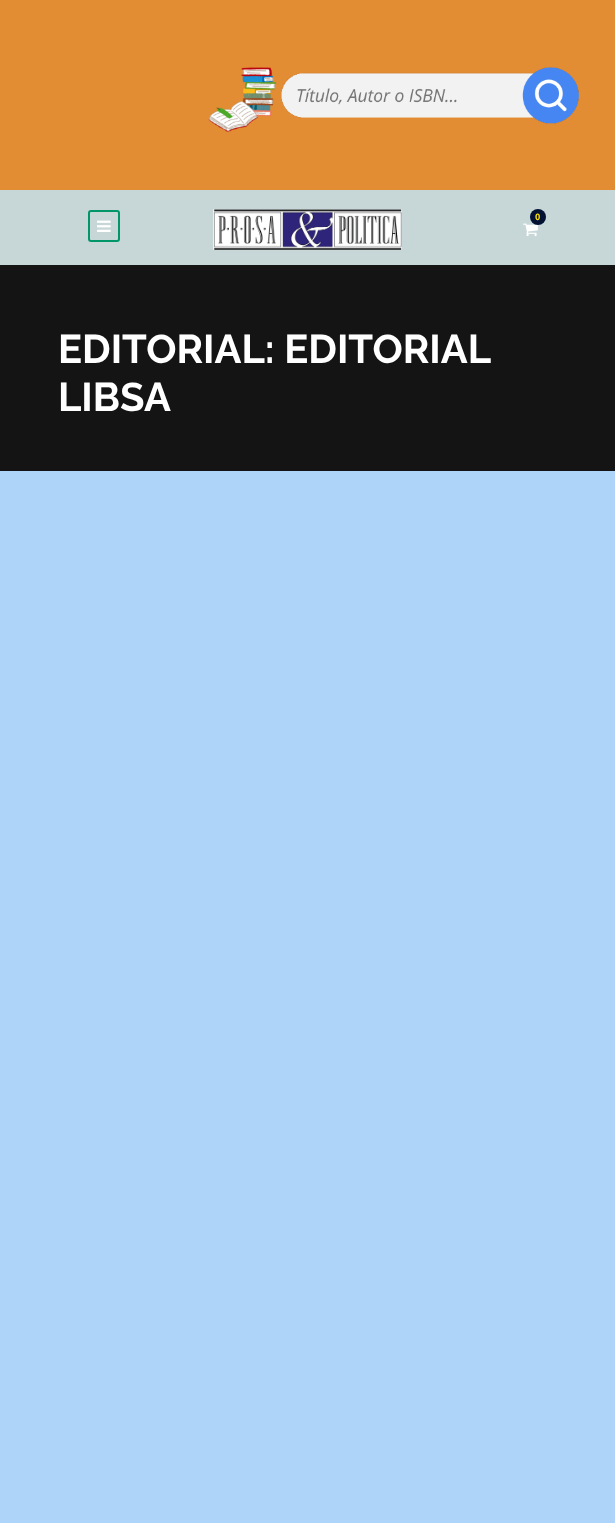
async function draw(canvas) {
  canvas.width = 615
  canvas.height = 1523
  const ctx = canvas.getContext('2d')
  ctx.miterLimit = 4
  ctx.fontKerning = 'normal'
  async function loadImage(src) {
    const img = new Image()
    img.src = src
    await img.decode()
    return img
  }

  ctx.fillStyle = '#e28c33'
  ctx.fillRect(0, 0, 615, 1523)
  ctx.drawImage(await loadImage('image0.png'), 208, 67, 371, 65)
  ctx.fillStyle = '#c7d7d7'
  ctx.fillRect(0, 190, 615, 75)
  ctx.beginPath()
  ctx.roundRect(89, 211, 30, 30, 2)
  ctx.strokeStyle = '#009768'
  ctx.lineWidth = 2
  ctx.stroke()
  ctx.drawImage(await loadImage('image1.png'), 97, 220, 14, 12)
  ctx.drawImage(await loadImage('image2.png'), 213, 209, 189, 41)
  ctx.drawImage(await loadImage('image3.png'), 523, 223, 15, 14)
  ctx.fillStyle = '#031132'
  ctx.beginPath()
  ctx.arc(538, 217, 8, 0, 2 * Math.PI)
  ctx.fill()
  ctx.font = 'bold 10px Source Sans Pro'
  ctx.fillStyle = '#ffdf0d'
  ctx.fillText('0', 535, 220)
  ctx.fillStyle = '#aed4f9'
  ctx.fillRect(0, 471, 615, 1052)
  ctx.fillStyle = '#141414'
  ctx.fillRect(0, 265, 615, 206)
  ctx.font = 'bold 40px Raleway'
  ctx.fillStyle = '#fff'
  ctx.fillText('EDITORIAL: EDITORIAL', 58, 363)
  ctx.fillText('LIBSA', 58, 411)
}

draw(document.querySelector('canvas'))
